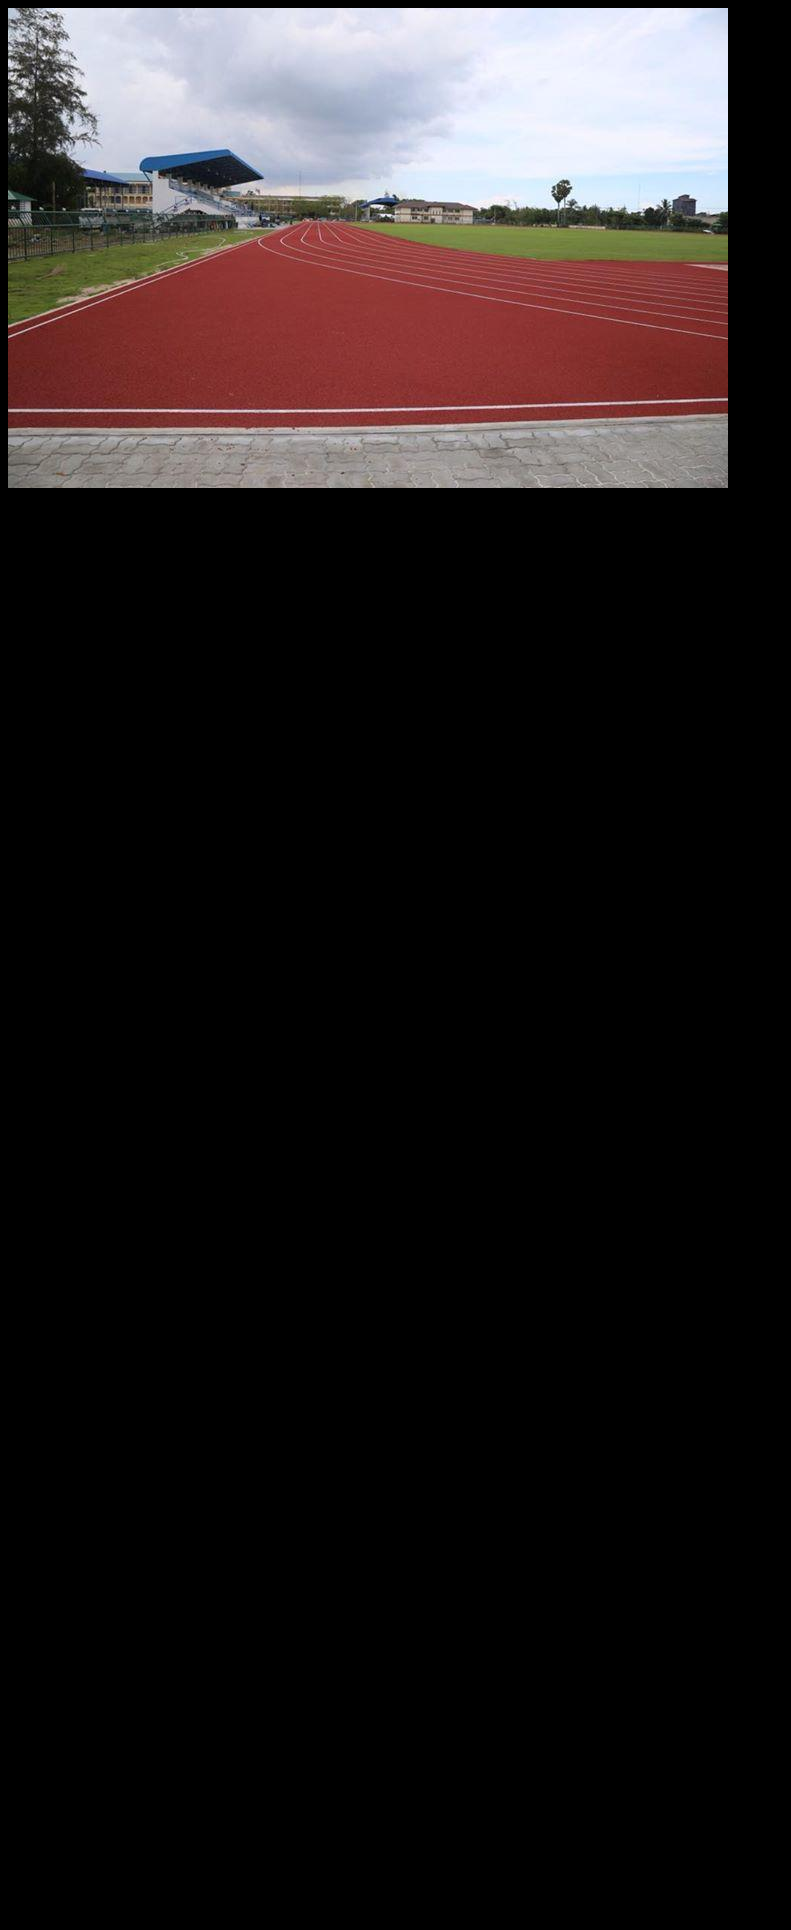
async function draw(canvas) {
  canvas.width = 791
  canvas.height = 1930
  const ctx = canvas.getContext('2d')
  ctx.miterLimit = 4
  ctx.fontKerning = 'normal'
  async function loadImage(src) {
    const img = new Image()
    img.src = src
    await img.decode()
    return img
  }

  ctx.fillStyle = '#000'
  ctx.fillRect(0, 0, 791, 1930)
  ctx.drawImage(await loadImage('image0.png'), 8, 8, 720, 480)
}

draw(document.querySelector('canvas'))
